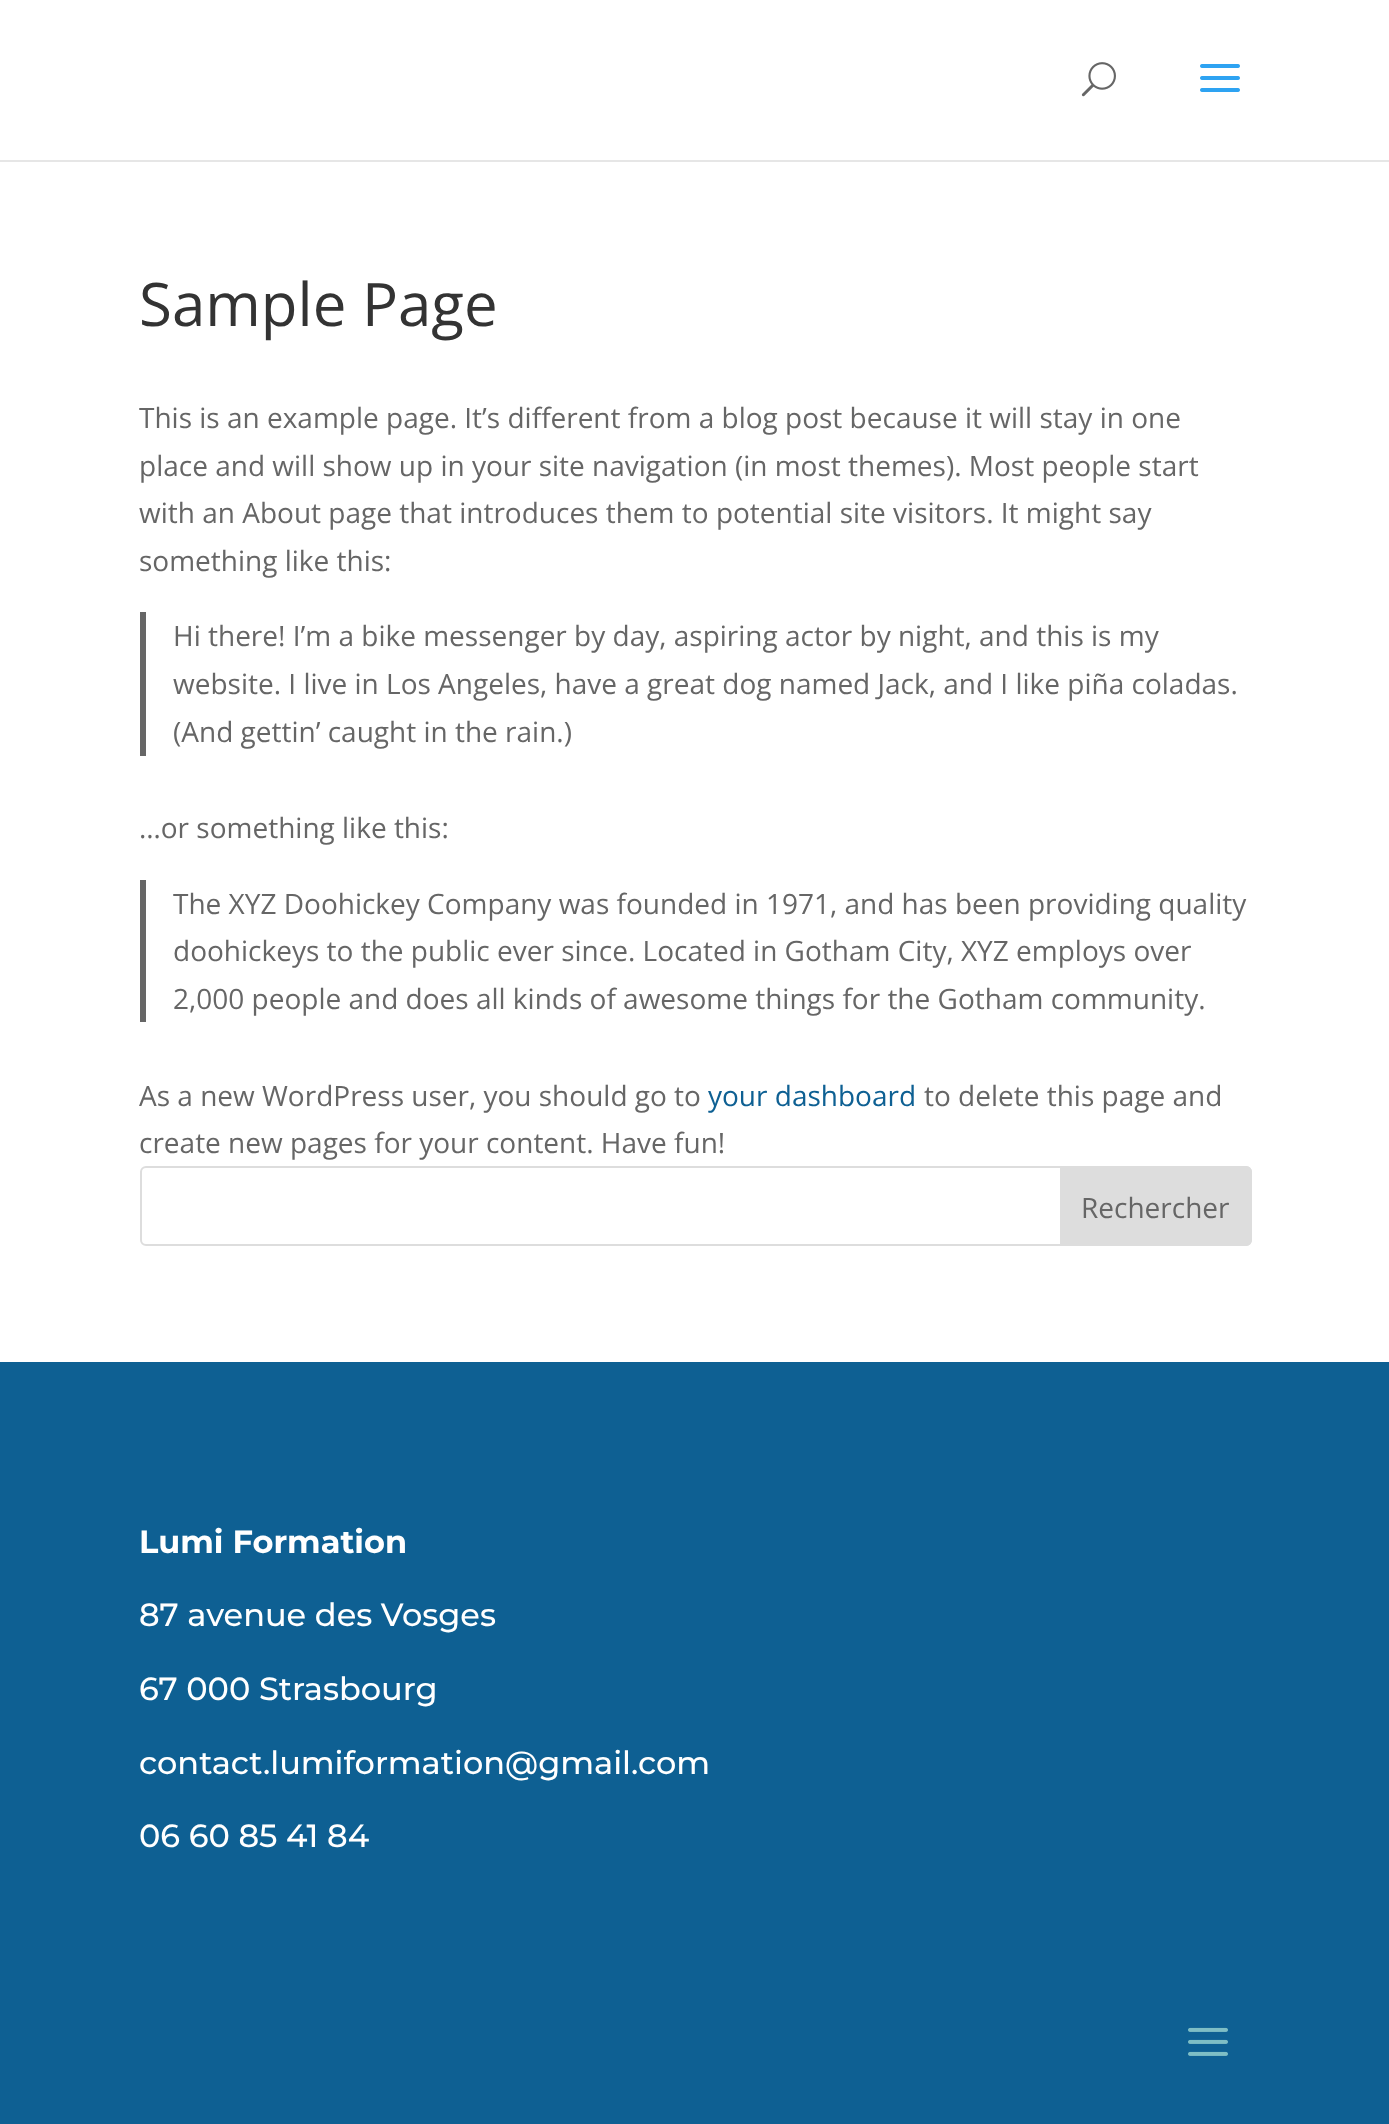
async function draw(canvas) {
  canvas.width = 1389
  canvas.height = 2124
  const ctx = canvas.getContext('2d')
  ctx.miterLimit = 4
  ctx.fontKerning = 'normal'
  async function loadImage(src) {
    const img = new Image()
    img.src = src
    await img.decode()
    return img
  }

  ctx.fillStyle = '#fff'
  ctx.fillRect(0, 0, 1389, 2124)
  ctx.fillStyle = '#e6e6e6'
  ctx.fillRect(0, 160, 1389, 2)
  ctx.drawImage(await loadImage('image0.png'), 1081, 62, 35, 35)
  ctx.drawImage(await loadImage('image1.png'), 1200, 64, 40, 28)
  ctx.font = '60px Open Sans'
  ctx.fillStyle = '#333'
  ctx.fillText('Sample Page', 139, 326)
  ctx.font = '28px Open Sans'
  ctx.fillStyle = '#666'
  ctx.fillText('This is an example page. It’s different from a blog post because it will stay in one', 139, 428)
  ctx.fillText('place and will show up in your site navigation (in most themes). Most people start', 139, 476)
  ctx.fillText('with an About page that introduces them to potential site visitors. It might say', 139, 523)
  ctx.fillText('something like this:', 139, 571)
  ctx.fillRect(140, 612, 6, 144)
  ctx.fillText('Hi there! I’m a bike messenger by day, aspiring actor by night, and this is my', 173, 646)
  ctx.fillText('website. I live in Los Angeles, have a great dog named Jack, and I like piña coladas.', 173, 694)
  ctx.fillText('(And gettin’ caught in the rain.)', 173, 742)
  ctx.fillText('…or something like this:', 139, 838)
  ctx.fillRect(140, 880, 6, 142)
  ctx.fillText('The XYZ Doohickey Company was founded in 1971, and has been providing quality', 173, 914)
  ctx.fillText('doohickeys to the public ever since. Located in Gotham City, XYZ employs over', 173, 961)
  ctx.fillText('2,000 people and does all kinds of awesome things for the Gotham community.', 173, 1009)
  ctx.fillText('As a new WordPress user, you should go to', 139, 1106)
  ctx.fillStyle = '#0e6093'
  ctx.fillText('your dashboard', 708, 1106)
  ctx.fillStyle = '#666'
  ctx.fillText('to delete this page and', 924, 1106)
  ctx.fillText('create new pages for your content. Have fun!', 139, 1153)
  ctx.beginPath()
  ctx.roundRect(141, 1167, 1110, 78, 5)
  ctx.strokeStyle = '#ddd'
  ctx.lineWidth = 2
  ctx.stroke()
  ctx.fillStyle = '#ddd'
  ctx.beginPath()
  ctx.roundRect(1061, 1167, 190, 78, [0, 5, 5, 0])
  ctx.fill()
  ctx.stroke()
  ctx.fillStyle = '#666'
  ctx.fillText('Rechercher', 1081, 1218)
  ctx.fillStyle = '#0e6093'
  ctx.fillRect(0, 1362, 1389, 762)
  ctx.font = '100 32px Montserrat'
  ctx.fillStyle = '#fff'
  ctx.fillText('Lumi Formation', 139, 1553)
  ctx.font = '100 32px "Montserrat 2"'
  ctx.fillText('87 avenue des Vosges', 139, 1626)
  ctx.fillText('67 000 Strasbourg', 139, 1700)
  ctx.fillText('contact.lumiformation@gmail.com', 139, 1774)
  ctx.fillText('06 60 85 41 84', 139, 1847)
  ctx.drawImage(await loadImage('image2.png'), 1188, 2027, 40, 29)
}

draw(document.querySelector('canvas'))
